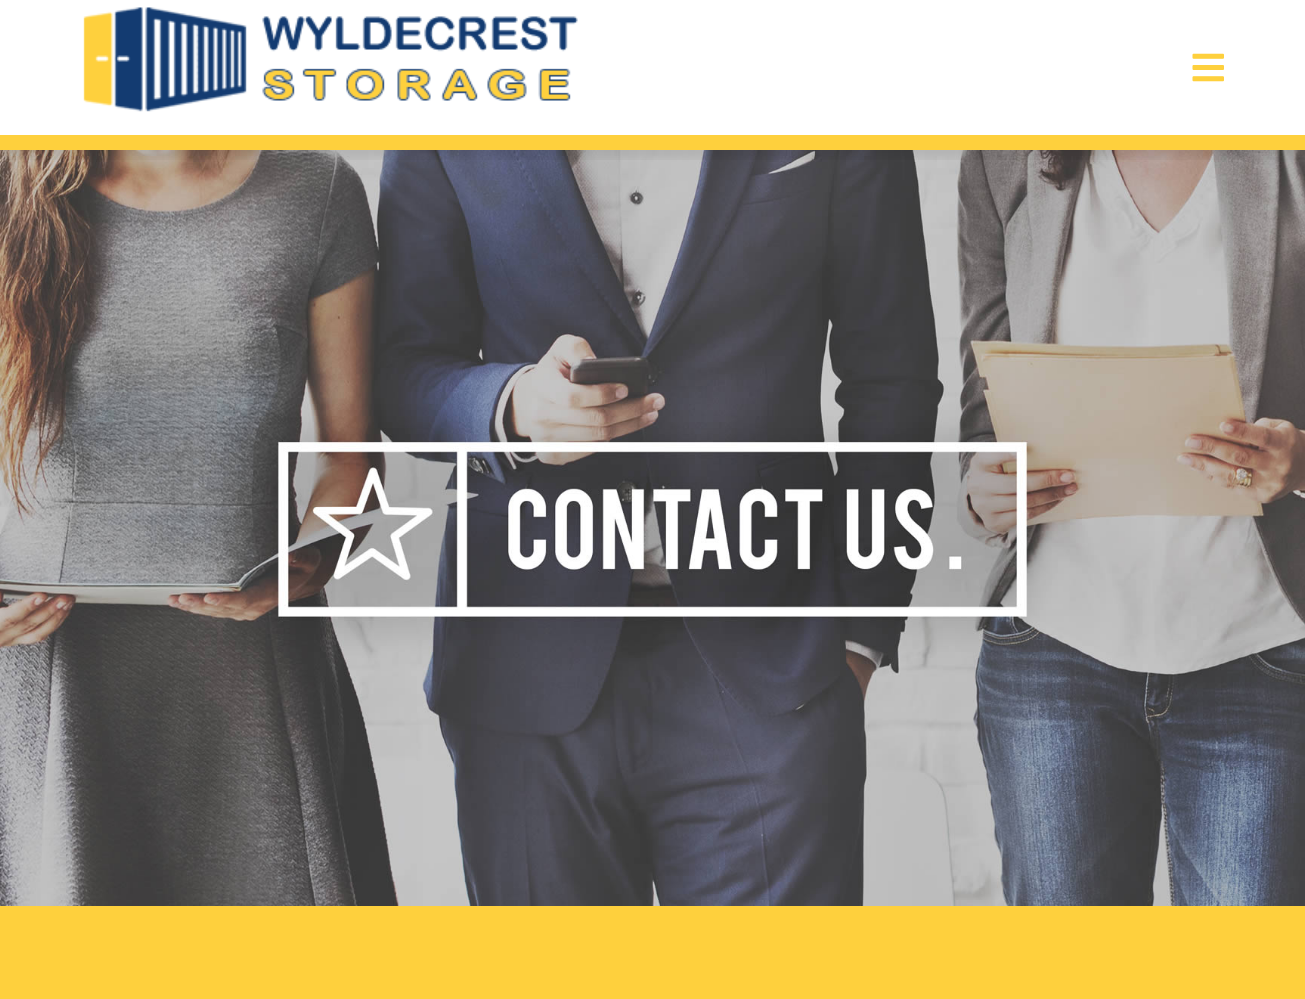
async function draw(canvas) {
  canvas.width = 1305
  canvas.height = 999
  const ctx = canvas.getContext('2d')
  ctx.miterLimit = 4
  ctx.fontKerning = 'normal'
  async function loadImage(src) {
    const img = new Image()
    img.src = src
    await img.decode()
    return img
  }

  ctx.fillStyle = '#fff'
  ctx.fillRect(0, 0, 1305, 999)
  ctx.drawImage(await loadImage('image2.png'), 0, 150, 1305, 756)
  ctx.save()
  ctx.beginPath()
  ctx.rect(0, 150, 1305, 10)
  ctx.clip()
  ctx.fillStyle = '#00000012'
  ctx.filter = 'blur(4px)'
  ctx.beginPath()
  ctx.rect(0, 8, 1305, 150)
  ctx.fill()
  ctx.filter = 'none'
  ctx.restore()
  ctx.fillStyle = '#fed03d'
  ctx.fillRect(0, 135, 1305, 15)
  ctx.drawImage(await loadImage('image0.png'), 83, 7, 495, 105)
  ctx.drawImage(await loadImage('image1.png'), 1192, 53, 32, 29)
  ctx.fillRect(0, 906, 1305, 93)
}

draw(document.querySelector('canvas'))
